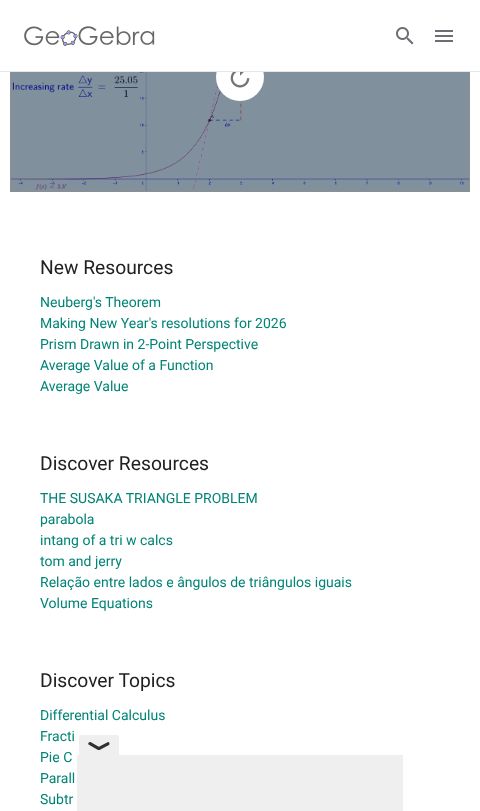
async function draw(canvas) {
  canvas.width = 480
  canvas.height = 811
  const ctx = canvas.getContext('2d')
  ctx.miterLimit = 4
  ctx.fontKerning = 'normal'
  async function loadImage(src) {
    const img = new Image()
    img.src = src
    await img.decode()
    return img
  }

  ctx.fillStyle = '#fff'
  ctx.fillRect(0, 0, 480, 811)
  ctx.drawImage(await loadImage('image4.png'), 11, 72, 458, 119)
  ctx.strokeStyle = '#8f8f8f'
  ctx.strokeRect(10.5, -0.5, 459, 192)
  ctx.beginPath()
  ctx.arc(240, 77, 24, 0, 2 * Math.PI)
  ctx.fill()
  ctx.fillRect(10, 0, 460, 71)
  ctx.fillStyle = '#e6e6eb'
  ctx.fillRect(0, 71, 480, 1)
  ctx.drawImage(await loadImage('image0.png'), 24, 26, 131, 20)
  ctx.drawImage(await loadImage('image1.png'), 396, 27, 18, 18)
  ctx.drawImage(await loadImage('image2.png'), 435, 30, 18, 12)
  ctx.drawImage(await loadImage('image3.png'), 230, 72, 20, 16)
  ctx.font = '19.25px Roboto'
  ctx.fillStyle = '#212121'
  ctx.fillText('New Resources', 40, 274)
  ctx.font = '14px Roboto'
  ctx.fillStyle = '#008475'
  ctx.fillText('Neuberg\'s Theorem', 40, 307)
  ctx.fillText('Making New Year\'s resolutions for 2026', 40, 328)
  ctx.fillText('Prism Drawn in 2-Point Perspective', 40, 349)
  ctx.fillText('Average Value of a Function', 40, 370)
  ctx.fillText('Average Value', 40, 391)
  ctx.font = '19.25px Roboto'
  ctx.fillStyle = '#212121'
  ctx.fillText('Discover Resources', 40, 470)
  ctx.font = '14px Roboto'
  ctx.fillStyle = '#008475'
  ctx.fillText('THE SUSAKA TRIANGLE PROBLEM', 40, 503)
  ctx.fillText('parabola', 40, 524)
  ctx.fillText('intang of a tri w calcs', 40, 545)
  ctx.fillText('tom and jerry', 40, 566)
  ctx.fillText('Relação entre lados e ângulos de triângulos iguais', 40, 587)
  ctx.fillText('Volume Equations', 40, 608)
  ctx.font = '19.25px Roboto'
  ctx.fillStyle = '#212121'
  ctx.fillText('Discover Topics', 40, 687)
  ctx.font = '14px Roboto'
  ctx.fillStyle = '#008475'
  ctx.fillText('Differential Calculus', 40, 720)
  ctx.fillText('Fracti', 40, 741)
  ctx.fillText('Pie C', 40, 762)
  ctx.fillText('Parall', 40, 783)
  ctx.fillText('Subtr', 40, 804)
  ctx.fillStyle = '#efefef'
  ctx.beginPath()
  ctx.roundRect(79, 735, 40, 20, [2, 2, 0, 0])
  ctx.fill()
  ctx.fillStyle = '#313131'
  ctx.beginPath()
  ctx.moveTo(90.5, 742)
  ctx.lineTo(100, 747.5)
  ctx.bezierCurveTo(100.5, 749, 99, 750.5, 98, 750)
  ctx.lineTo(88.5, 744.5)
  ctx.bezierCurveTo(87.5, 743, 89.5, 741.5, 90.5, 742)
  ctx.closePath()
  ctx.fill()
  ctx.beginPath()
  ctx.moveTo(98.5, 747)
  ctx.lineTo(108, 742)
  ctx.bezierCurveTo(109.5, 742, 110, 744, 109, 745)
  ctx.lineTo(99.5, 750)
  ctx.bezierCurveTo(98, 750, 97.5, 748, 98.5, 747)
  ctx.closePath()
  ctx.fill()
  ctx.fillStyle = '#efefef'
  ctx.fillRect(77, 755, 326, 56)
}

draw(document.querySelector('canvas'))
